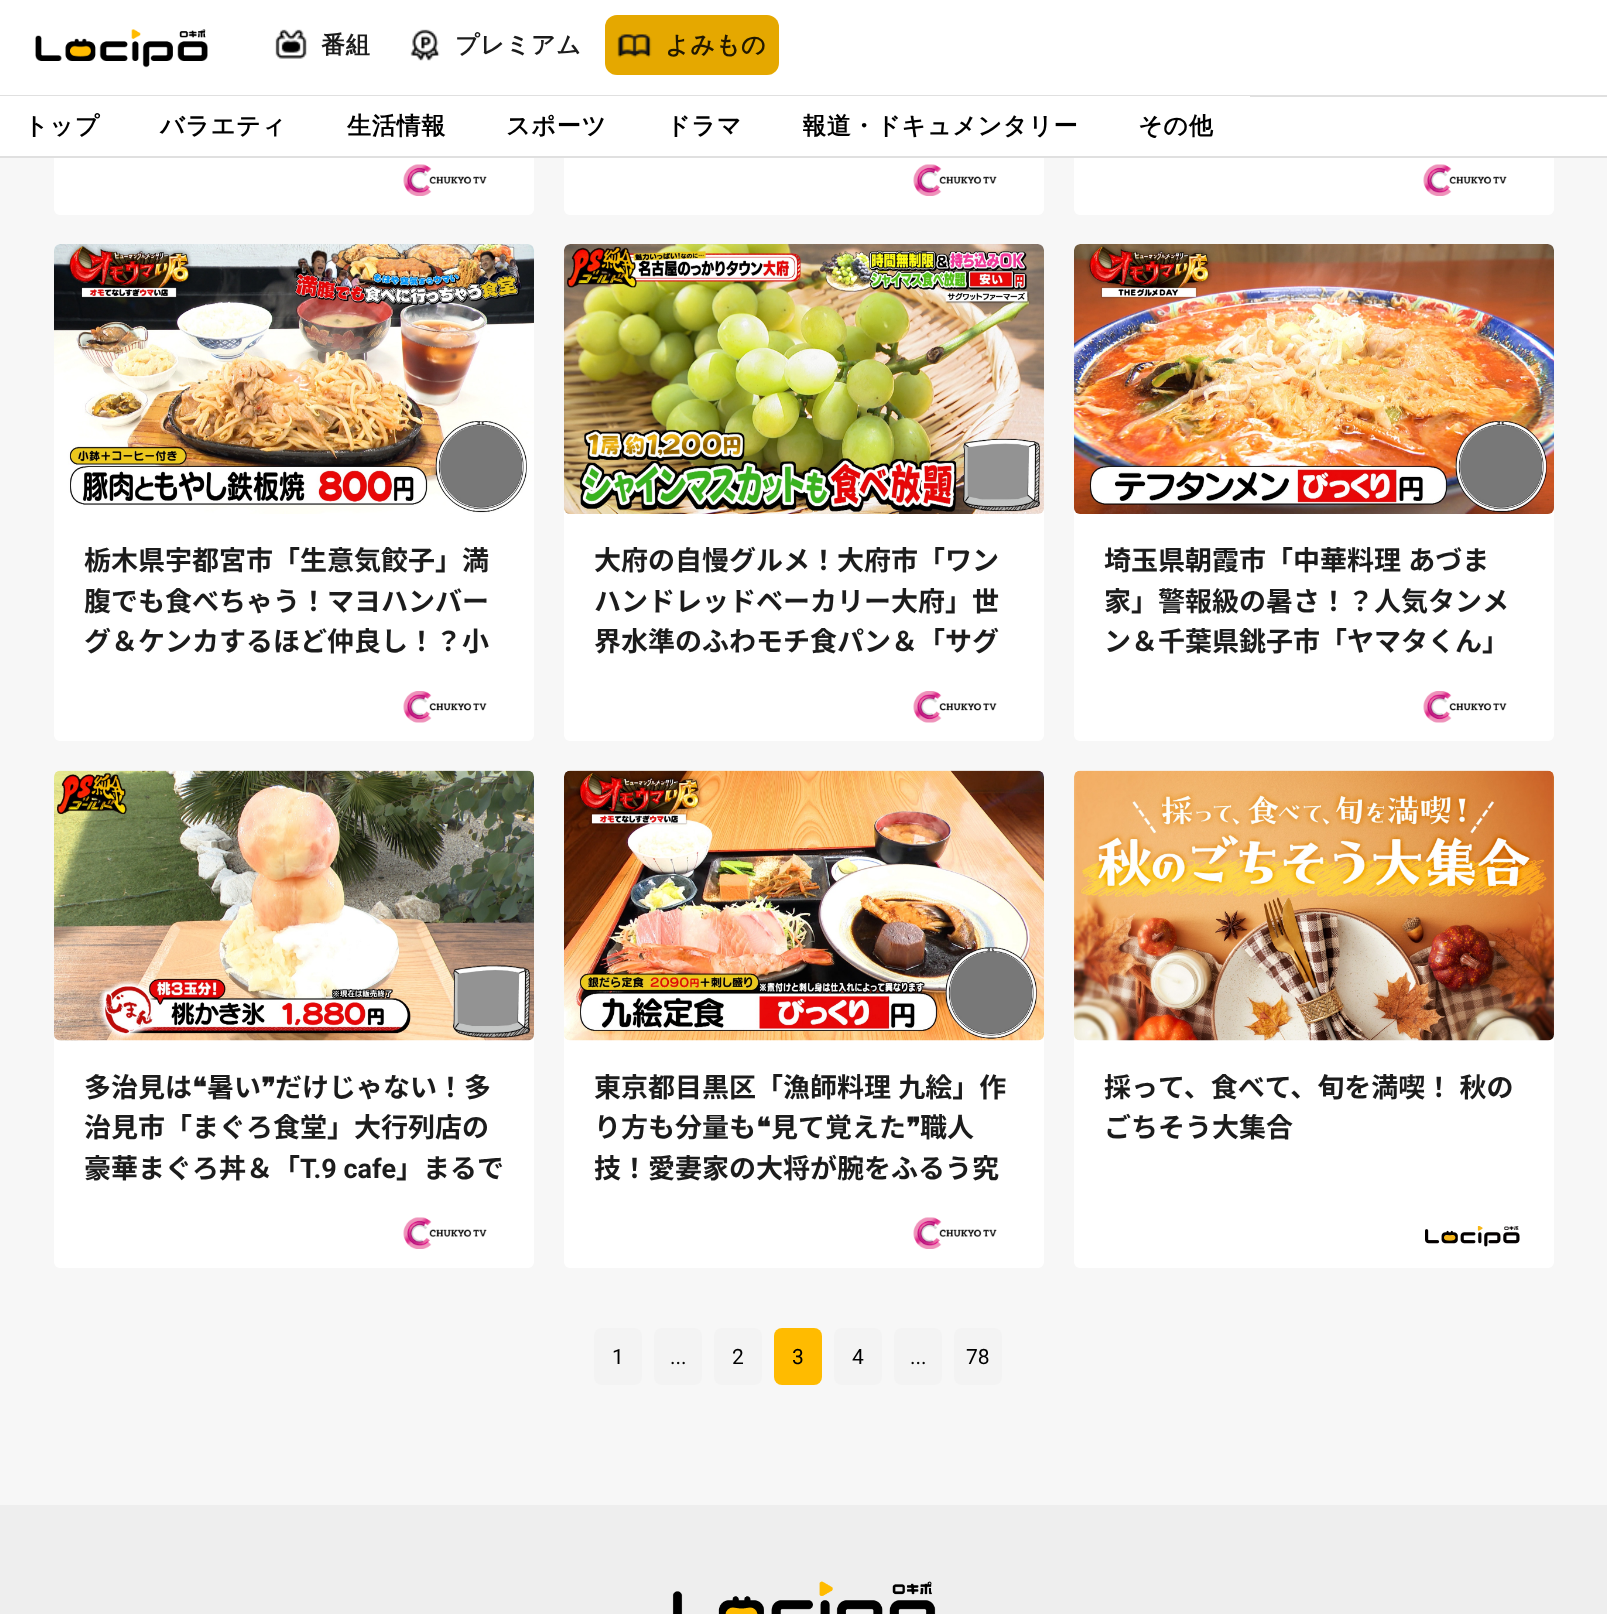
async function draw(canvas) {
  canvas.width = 1607
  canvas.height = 1614
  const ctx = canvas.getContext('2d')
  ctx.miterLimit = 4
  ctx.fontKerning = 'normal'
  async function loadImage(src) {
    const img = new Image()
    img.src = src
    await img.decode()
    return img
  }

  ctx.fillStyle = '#f7f7f7'
  ctx.fillRect(0, 0, 1607, 1614)
  ctx.fillStyle = '#fff'
  ctx.beginPath()
  ctx.roundRect(54, -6, 480, 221, 6)
  ctx.fill()
  ctx.beginPath()
  ctx.roundRect(564, -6, 480, 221, 6)
  ctx.fill()
  ctx.beginPath()
  ctx.roundRect(1074, -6, 480, 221, 6)
  ctx.fill()
  ctx.fillRect(0, 0, 1607, 95)
  ctx.drawImage(await loadImage('image0.png'), 35, 29, 173, 39)
  ctx.drawImage(await loadImage('image1.png'), 275, 29, 32, 30)
  ctx.letterSpacing = '0.75px'
  ctx.font = 'bold 24px WenQuanYi Zen Hei'
  ctx.fillStyle = '#1c1c1c'
  ctx.fillText('番組', 321, 53)
  ctx.drawImage(await loadImage('image2.png'), 410, 29, 30, 32)
  ctx.fillText('プレミアム', 455, 53)
  ctx.fillStyle = '#ffbc01'
  ctx.beginPath()
  ctx.roundRect(605, 15, 174, 60, 12)
  ctx.fill()
  ctx.drawImage(await loadImage('image3.png'), 617, 34, 35, 24)
  ctx.fillStyle = '#0000001a'
  ctx.beginPath()
  ctx.roundRect(605, 15, 174, 60, 12)
  ctx.fill()
  ctx.fillStyle = '#211800'
  ctx.fillText('よみもの', 665, 53)
  ctx.fillStyle = '#fff'
  ctx.fillRect(1554, 97, 53, 59)
  ctx.fillStyle = '#e0e0e0'
  ctx.fillRect(0, 95, 1607, 2)
  ctx.fillRect(0, 156, 1607, 2)
  ctx.fillStyle = '#fff'
  ctx.fillRect(0, 96, 1250, 60)
  ctx.fillStyle = '#000'
  ctx.fillText('トップ', 24, 134)
  ctx.fillText('バラエティ', 160, 134)
  ctx.fillText('生活情報', 347, 134)
  ctx.fillText('スポーツ', 506, 134)
  ctx.fillText('ドラマ', 666, 134)
  ctx.save()
  ctx.beginPath()
  ctx.rect(803, 108, 276, 36)
  ctx.clip()
  ctx.fillText('報道・ドキュメンタリー', 802, 134)
  ctx.restore()
  ctx.fillText('その他', 1138, 134)
  ctx.drawImage(await loadImage('image4.png'), 403, 164, 84, 32)
  ctx.drawImage(await loadImage('image5.png'), 913, 164, 84, 32)
  ctx.drawImage(await loadImage('image4.png'), 1423, 164, 84, 32)
  ctx.fillStyle = '#fff'
  ctx.beginPath()
  ctx.roundRect(54, 245, 480, 496, 6)
  ctx.fill()
  ctx.drawImage(await loadImage('image6.png'), 54, 244, 480, 270)
  ctx.letterSpacing = '0px'
  ctx.font = 'bold 27px Noto Sans CJK JP'
  ctx.fillStyle = '#1c1c1c'
  ctx.fillText('栃木県宇都宮市「生意気餃子」満', 84, 570)
  ctx.fillText('腹でも食べちゃう！マヨハンバー', 84, 611)
  ctx.fillText('グ＆ケンカするほど仲良し！？小', 84, 651)
  ctx.drawImage(await loadImage('image7.png'), 403, 691, 84, 32)
  ctx.fillStyle = '#fff'
  ctx.beginPath()
  ctx.roundRect(564, 245, 480, 496, 6)
  ctx.fill()
  ctx.drawImage(await loadImage('image8.png'), 564, 244, 480, 270)
  ctx.fillStyle = '#1c1c1c'
  ctx.fillText('大府の自慢グルメ！大府市「ワン', 594, 570)
  ctx.fillText('ハンドレッドベーカリー大府」世', 594, 611)
  ctx.fillText('界水準のふわモチ食パン＆「サグ', 594, 651)
  ctx.drawImage(await loadImage('image9.png'), 913, 691, 84, 32)
  ctx.fillStyle = '#fff'
  ctx.beginPath()
  ctx.roundRect(1074, 245, 480, 496, 6)
  ctx.fill()
  ctx.drawImage(await loadImage('image10.png'), 1074, 244, 480, 270)
  ctx.wordSpacing = '1px'
  ctx.fillStyle = '#1c1c1c'
  ctx.fillText('埼玉県朝霞市「中華料理 あづま', 1104, 570)
  ctx.wordSpacing = '0px'
  ctx.fillText('家」警報級の暑さ！？人気タンメ', 1104, 611)
  ctx.fillText('ン＆千葉県銚子市「ヤマタくん」', 1104, 651)
  ctx.drawImage(await loadImage('image7.png'), 1423, 691, 84, 32)
  ctx.fillStyle = '#fff'
  ctx.beginPath()
  ctx.roundRect(54, 771, 480, 497, 6)
  ctx.fill()
  ctx.drawImage(await loadImage('image11.png'), 54, 770, 480, 271)
  ctx.fillStyle = '#1c1c1c'
  ctx.fillText('多治見は', 84, 1097)
  ctx.font = 'bold 27px DejaVu Sans'
  ctx.fillText('❝', 192, 1097)
  ctx.font = 'bold 27px Noto Sans CJK JP'
  ctx.fillText('暑い', 207, 1097)
  ctx.font = 'bold 27px DejaVu Sans'
  ctx.fillText('❞', 261, 1097)
  ctx.font = 'bold 27px Noto Sans CJK JP'
  ctx.fillText('だけじゃない！多', 275, 1097)
  ctx.fillText('治見市「まぐろ食堂」大行列店の', 84, 1137)
  ctx.fillText('豪華まぐろ丼＆「', 84, 1178)
  ctx.font = 'bold 27px Roboto'
  ctx.fillText('T.9 cafe', 300, 1178)
  ctx.font = 'bold 27px Noto Sans CJK JP'
  ctx.fillText('」まるで', 396, 1178)
  ctx.drawImage(await loadImage('image4.png'), 403, 1217, 84, 32)
  ctx.fillStyle = '#fff'
  ctx.beginPath()
  ctx.roundRect(564, 771, 480, 497, 6)
  ctx.fill()
  ctx.drawImage(await loadImage('image12.png'), 564, 770, 480, 271)
  ctx.wordSpacing = '1px'
  ctx.fillStyle = '#1c1c1c'
  ctx.fillText('東京都目黒区「漁師料理 九絵」作', 594, 1097)
  ctx.wordSpacing = '0px'
  ctx.fillText('り方も分量も', 594, 1137)
  ctx.font = 'bold 27px DejaVu Sans'
  ctx.fillText('❝', 756, 1137)
  ctx.font = 'bold 27px Noto Sans CJK JP'
  ctx.fillText('見て覚えた', 771, 1137)
  ctx.font = 'bold 27px DejaVu Sans'
  ctx.fillText('❞', 906, 1137)
  ctx.font = 'bold 27px Noto Sans CJK JP'
  ctx.fillText('職人', 920, 1137)
  ctx.fillText('技！愛妻家の大将が腕をふるう究', 594, 1178)
  ctx.drawImage(await loadImage('image5.png'), 913, 1217, 84, 32)
  ctx.fillStyle = '#fff'
  ctx.beginPath()
  ctx.roundRect(1074, 771, 480, 497, 6)
  ctx.fill()
  ctx.drawImage(await loadImage('image13.png'), 1074, 770, 480, 271)
  ctx.wordSpacing = '1px'
  ctx.fillStyle = '#1c1c1c'
  ctx.fillText('採って、食べて、旬を満喫！ 秋の', 1104, 1097)
  ctx.wordSpacing = '0px'
  ctx.fillText('ごちそう大集合', 1104, 1137)
  ctx.drawImage(await loadImage('image14.png'), 1425, 1226, 95, 21)
  ctx.fillStyle = '#f3f3f3'
  ctx.beginPath()
  ctx.roundRect(594, 1328, 48, 57, 8)
  ctx.fill()
  ctx.font = '21px Roboto'
  ctx.fillStyle = '#000'
  ctx.fillText('1', 612, 1364)
  ctx.fillStyle = '#f3f3f3'
  ctx.beginPath()
  ctx.roundRect(654, 1328, 48, 57, 8)
  ctx.fill()
  ctx.fillStyle = '#000'
  ctx.fillText('...', 670, 1364)
  ctx.fillStyle = '#f3f3f3'
  ctx.beginPath()
  ctx.roundRect(714, 1328, 48, 57, 8)
  ctx.fill()
  ctx.fillStyle = '#000'
  ctx.fillText('2', 732, 1364)
  ctx.fillStyle = '#fb0'
  ctx.beginPath()
  ctx.roundRect(774, 1328, 48, 57, 8)
  ctx.fill()
  ctx.fillStyle = '#000'
  ctx.fillText('3', 792, 1364)
  ctx.fillStyle = '#f3f3f3'
  ctx.beginPath()
  ctx.roundRect(834, 1328, 48, 57, 8)
  ctx.fill()
  ctx.fillStyle = '#000'
  ctx.fillText('4', 852, 1364)
  ctx.fillStyle = '#f3f3f3'
  ctx.beginPath()
  ctx.roundRect(894, 1328, 48, 57, 8)
  ctx.fill()
  ctx.fillStyle = '#000'
  ctx.fillText('...', 910, 1364)
  ctx.fillStyle = '#f3f3f3'
  ctx.beginPath()
  ctx.roundRect(954, 1328, 48, 57, 8)
  ctx.fill()
  ctx.fillStyle = '#000'
  ctx.fillText('78', 966, 1364)
  ctx.fillStyle = '#eee'
  ctx.fillRect(0, 1505, 1607, 109)
  ctx.drawImage(await loadImage('image15.png'), 672, 1581, 264, 33)
}

draw(document.querySelector('canvas'))
